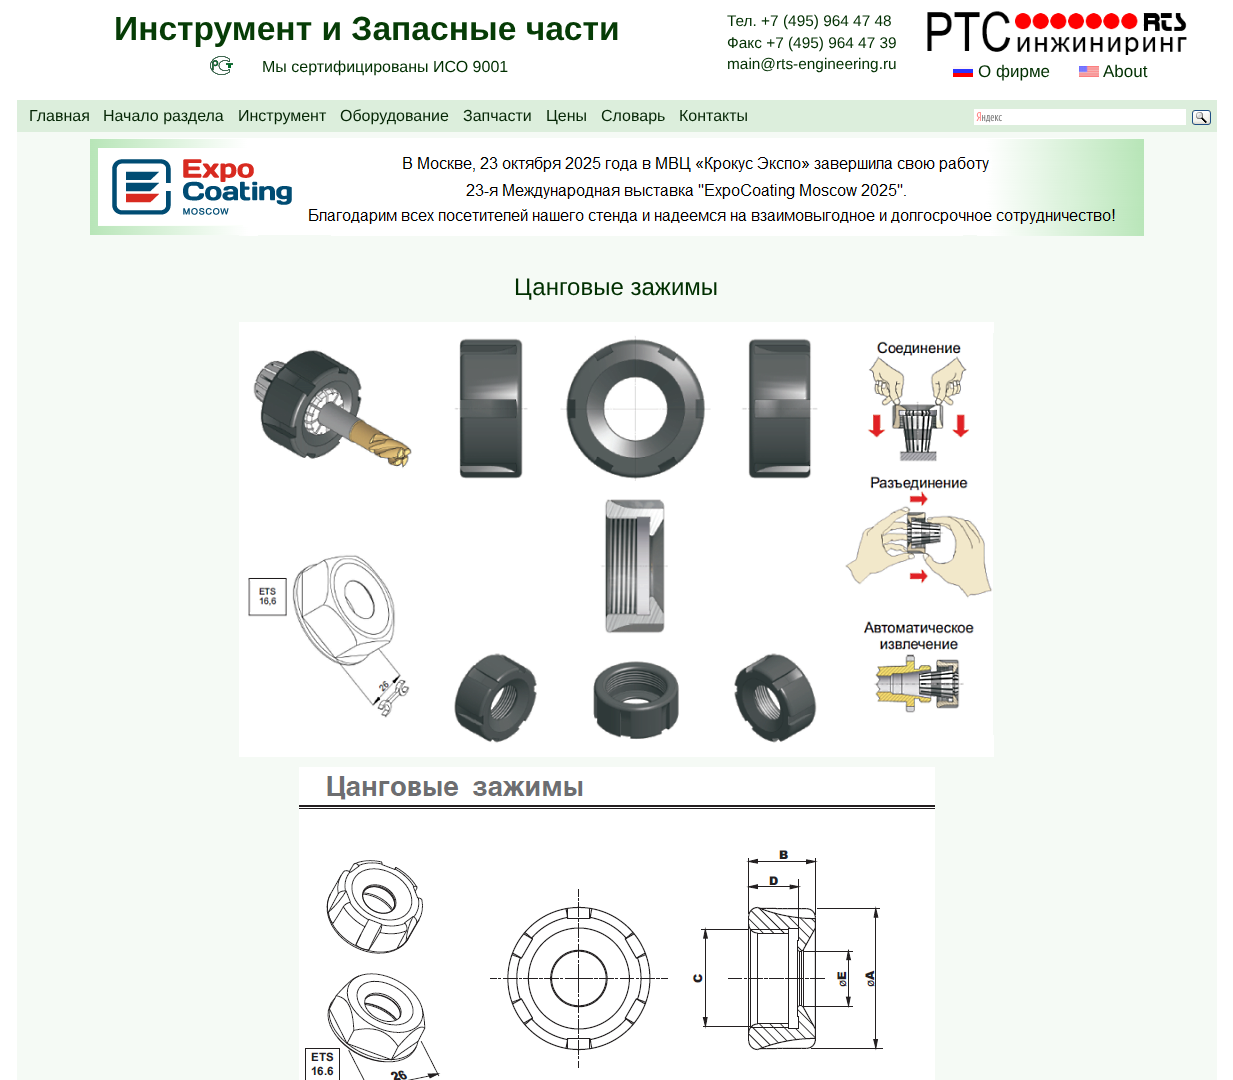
async function draw(canvas) {
  canvas.width = 1233
  canvas.height = 1080
  const ctx = canvas.getContext('2d')
  ctx.miterLimit = 4
  ctx.fontKerning = 'normal'
  async function loadImage(src) {
    const img = new Image()
    img.src = src
    await img.decode()
    return img
  }

  ctx.fillStyle = '#fff'
  ctx.fillRect(0, 0, 1233, 1080)
  ctx.fillStyle = '#f5faf5'
  ctx.fillRect(17, 132, 1200, 948)
  ctx.font = 'bold 33.6px Liberation Sans'
  ctx.fillStyle = '#063c06'
  ctx.fillText('Инструмент и Запасные части', 114, 40)
  ctx.drawImage(await loadImage('image0.png'), 210, 56, 23, 19)
  ctx.font = '16px Liberation Sans'
  ctx.fillStyle = '#002f00'
  ctx.fillText('Мы сертифицированы ИСО 9001', 262, 72)
  ctx.font = '15.4px Liberation Sans'
  ctx.fillText('Тел. +7 (495) 964 47 48', 727, 26)
  ctx.fillText('Факс +7 (495) 964 47 39', 727, 48)
  ctx.fillText('main@rts-engineering.ru', 727, 69)
  ctx.drawImage(await loadImage('image1.png'), 927, 11, 260, 44)
  ctx.drawImage(await loadImage('image2.png'), 953, 66, 20, 11)
  ctx.font = '17px Liberation Sans'
  ctx.fillText('О фирме', 978, 77)
  ctx.drawImage(await loadImage('image3.png'), 1079, 66, 20, 11)
  ctx.fillText('About', 1103, 77)
  ctx.fillStyle = '#dceedc'
  ctx.fillRect(17, 100, 1200, 32)
  ctx.font = '16px Liberation Sans'
  ctx.fillStyle = '#052605'
  ctx.fillText('Главная', 29, 121)
  ctx.fillText('Начало раздела', 103, 121)
  ctx.fillText('Инструмент', 238, 121)
  ctx.fillText('Оборудование', 340, 121)
  ctx.fillText('Запчасти', 463, 121)
  ctx.fillText('Цены', 546, 121)
  ctx.fillText('Словарь', 601, 121)
  ctx.fillText('Контакты', 679, 121)
  ctx.fillStyle = '#fff'
  ctx.fillRect(974, 109, 212, 16)
  ctx.drawImage(await loadImage('image4.png'), 976, 112, 26, 11)
  ctx.drawImage(await loadImage('image5.png'), 1192, 110, 19, 15)
  ctx.drawImage(await loadImage('image6.png'), 90, 138, 1054, 98)
  ctx.font = '24px Liberation Sans'
  ctx.fillStyle = '#002f00'
  ctx.fillText('Цанговые зажимы', 514, 295)
  ctx.drawImage(await loadImage('image7.png'), 239, 322, 755, 435)
  ctx.drawImage(await loadImage('image8.png'), 299, 767, 636, 313)
}

draw(document.querySelector('canvas'))
